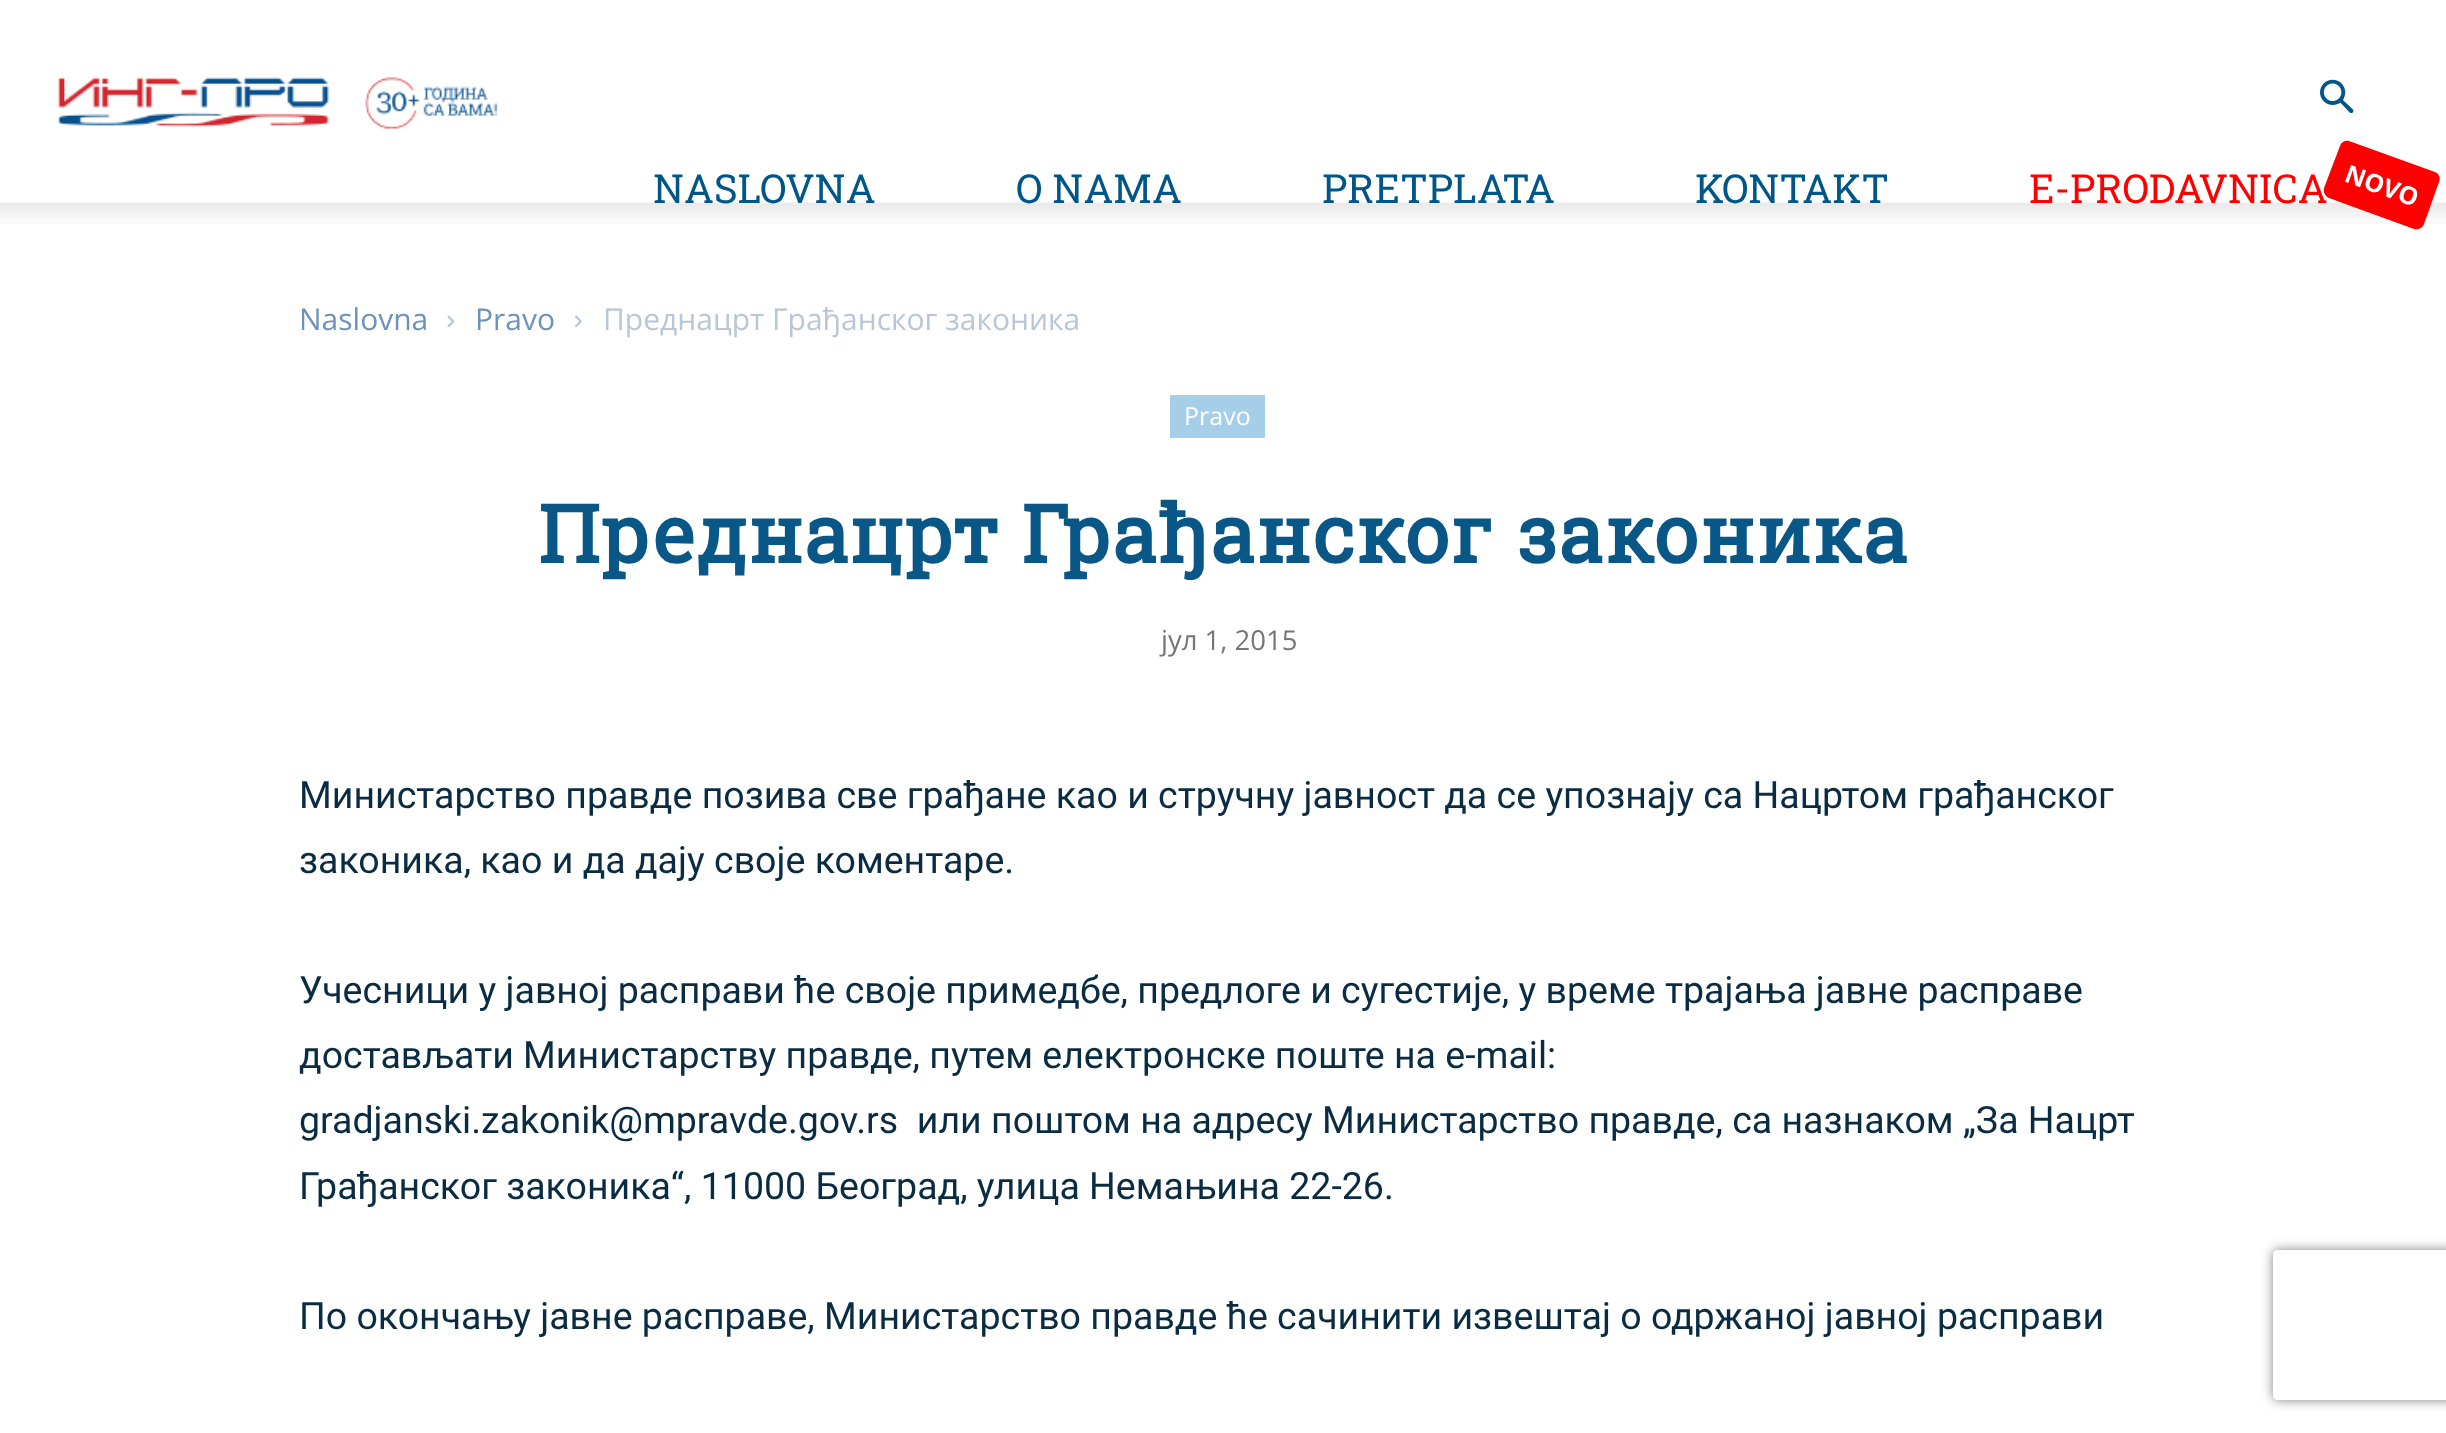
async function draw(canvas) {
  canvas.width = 2446
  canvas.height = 1433
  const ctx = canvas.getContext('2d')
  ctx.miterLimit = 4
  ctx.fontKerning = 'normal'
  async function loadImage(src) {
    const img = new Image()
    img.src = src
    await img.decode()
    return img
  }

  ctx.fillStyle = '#fff'
  ctx.fillRect(0, 0, 2446, 1433)
  ctx.drawImage(await loadImage('image0.png'), 2320, 79, 34, 35)
  ctx.drawImage(await loadImage('image1.png'), 57, 77, 441, 52)
  ctx.drawImage(await loadImage('image2.png'), 0, 202, 2446, 22)
  ctx.font = '40px Roboto Slab'
  ctx.fillStyle = '#005689'
  ctx.fillText('NASLOVNA', 653, 203)
  ctx.fillText('O NAMA', 1016, 203)
  ctx.fillText('PRETPLATA', 1322, 203)
  ctx.fillText('KONTAKT', 1695, 203)
  ctx.fillStyle = '#f00'
  ctx.fillText('E-PRODAVNICA', 2029, 203)
  ctx.beginPath()
  ctx.moveTo(2349, 141)
  ctx.lineTo(2435, 172)
  ctx.bezierCurveTo(2439, 174, 2441, 178, 2439, 182)
  ctx.lineTo(2424, 224)
  ctx.bezierCurveTo(2423, 228, 2418, 230, 2414, 229)
  ctx.lineTo(2329, 198)
  ctx.bezierCurveTo(2325, 196, 2323, 192, 2324, 188)
  ctx.lineTo(2340, 146)
  ctx.bezierCurveTo(2341, 142, 2345, 140, 2349, 141)
  ctx.closePath()
  ctx.fill()
  ctx.font = 'bold 25px Open Sans'
  ctx.fillStyle = '#fff'
  ctx.save()
  ctx.translate(2343, 181)
  ctx.rotate(20 * Math.PI / 180)
  ctx.fillText('NOVO', 0, 0)
  ctx.restore()
  ctx.font = '30px Open Sans'
  ctx.fillStyle = '#6c92bd'
  ctx.fillText('Naslovna', 299, 330)
  ctx.drawImage(await loadImage('image3.png'), 447, 315, 8, 13)
  ctx.fillText('Pravo', 475, 330)
  ctx.drawImage(await loadImage('image4.png'), 575, 315, 7, 13)
  ctx.fillStyle = '#b8c6d6'
  ctx.fillText('Преднацрт Грађанског законика', 603, 330)
  ctx.fillStyle = '#a5cfe8'
  ctx.fillRect(1170, 395, 95, 43)
  ctx.font = '25px Open Sans'
  ctx.fillStyle = '#fff'
  ctx.fillText('Pravo', 1184, 425)
  ctx.letterSpacing = '1.6px'
  ctx.font = 'bold 80px Roboto Slab'
  ctx.fillStyle = '#095787'
  ctx.fillText('Преднацрт Грађанског законика', 538, 563)
  ctx.letterSpacing = '0px'
  ctx.font = '27.5px Open Sans'
  ctx.fillStyle = '#767676'
  ctx.fillText('јул 1, 2015', 1161, 650)
  ctx.font = '37.5px Roboto'
  ctx.fillStyle = '#092c42'
  ctx.fillText('Министарство правде позива све грађане као и стручну јавност да се упознају са Нацртом грађанског', 299, 808)
  ctx.fillText('законика, као и да дају своје коментаре.', 299, 873)
  ctx.fillText('Учесници у јавној расправи ће своје примедбе, предлоге и сугестије, у време трајања јавне расправе', 299, 1003)
  ctx.fillText('достављати Министарству правде, путем електронске поште на e-mail:', 299, 1068)
  ctx.fillText('gradjanski.zakonik@mpravde.gov.rs  или поштом на адресу Министарство правде, са назнаком „За Нацрт', 299, 1133)
  ctx.fillText('Грађанског законика“, 11000 Београд, улица Немањина 22-26.', 299, 1199)
  ctx.fillText('По окончању јавне расправе, Министарство правде ће сачинити извештај о одржаној јавној расправи', 299, 1329)
  ctx.save()
  ctx.beginPath()
  ctx.moveTo(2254, 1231)
  ctx.lineTo(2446, 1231)
  ctx.lineTo(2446, 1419)
  ctx.lineTo(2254, 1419)
  ctx.closePath()
  ctx.moveTo(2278, 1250)
  ctx.lineTo(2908, 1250)
  ctx.bezierCurveTo(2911, 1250, 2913, 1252, 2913, 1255)
  ctx.lineTo(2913, 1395)
  ctx.bezierCurveTo(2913, 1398, 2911, 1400, 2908, 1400)
  ctx.lineTo(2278, 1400)
  ctx.bezierCurveTo(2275, 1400, 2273, 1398, 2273, 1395)
  ctx.lineTo(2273, 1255)
  ctx.bezierCurveTo(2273, 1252, 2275, 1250, 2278, 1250)
  ctx.closePath()
  ctx.clip('evenodd')
  ctx.fillStyle = '#808080'
  ctx.filter = 'blur(6px)'
  ctx.beginPath()
  ctx.roundRect(2273, 1250, 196, 150, 5)
  ctx.fill()
  ctx.filter = 'none'
  ctx.restore()
}

draw(document.querySelector('canvas'))
